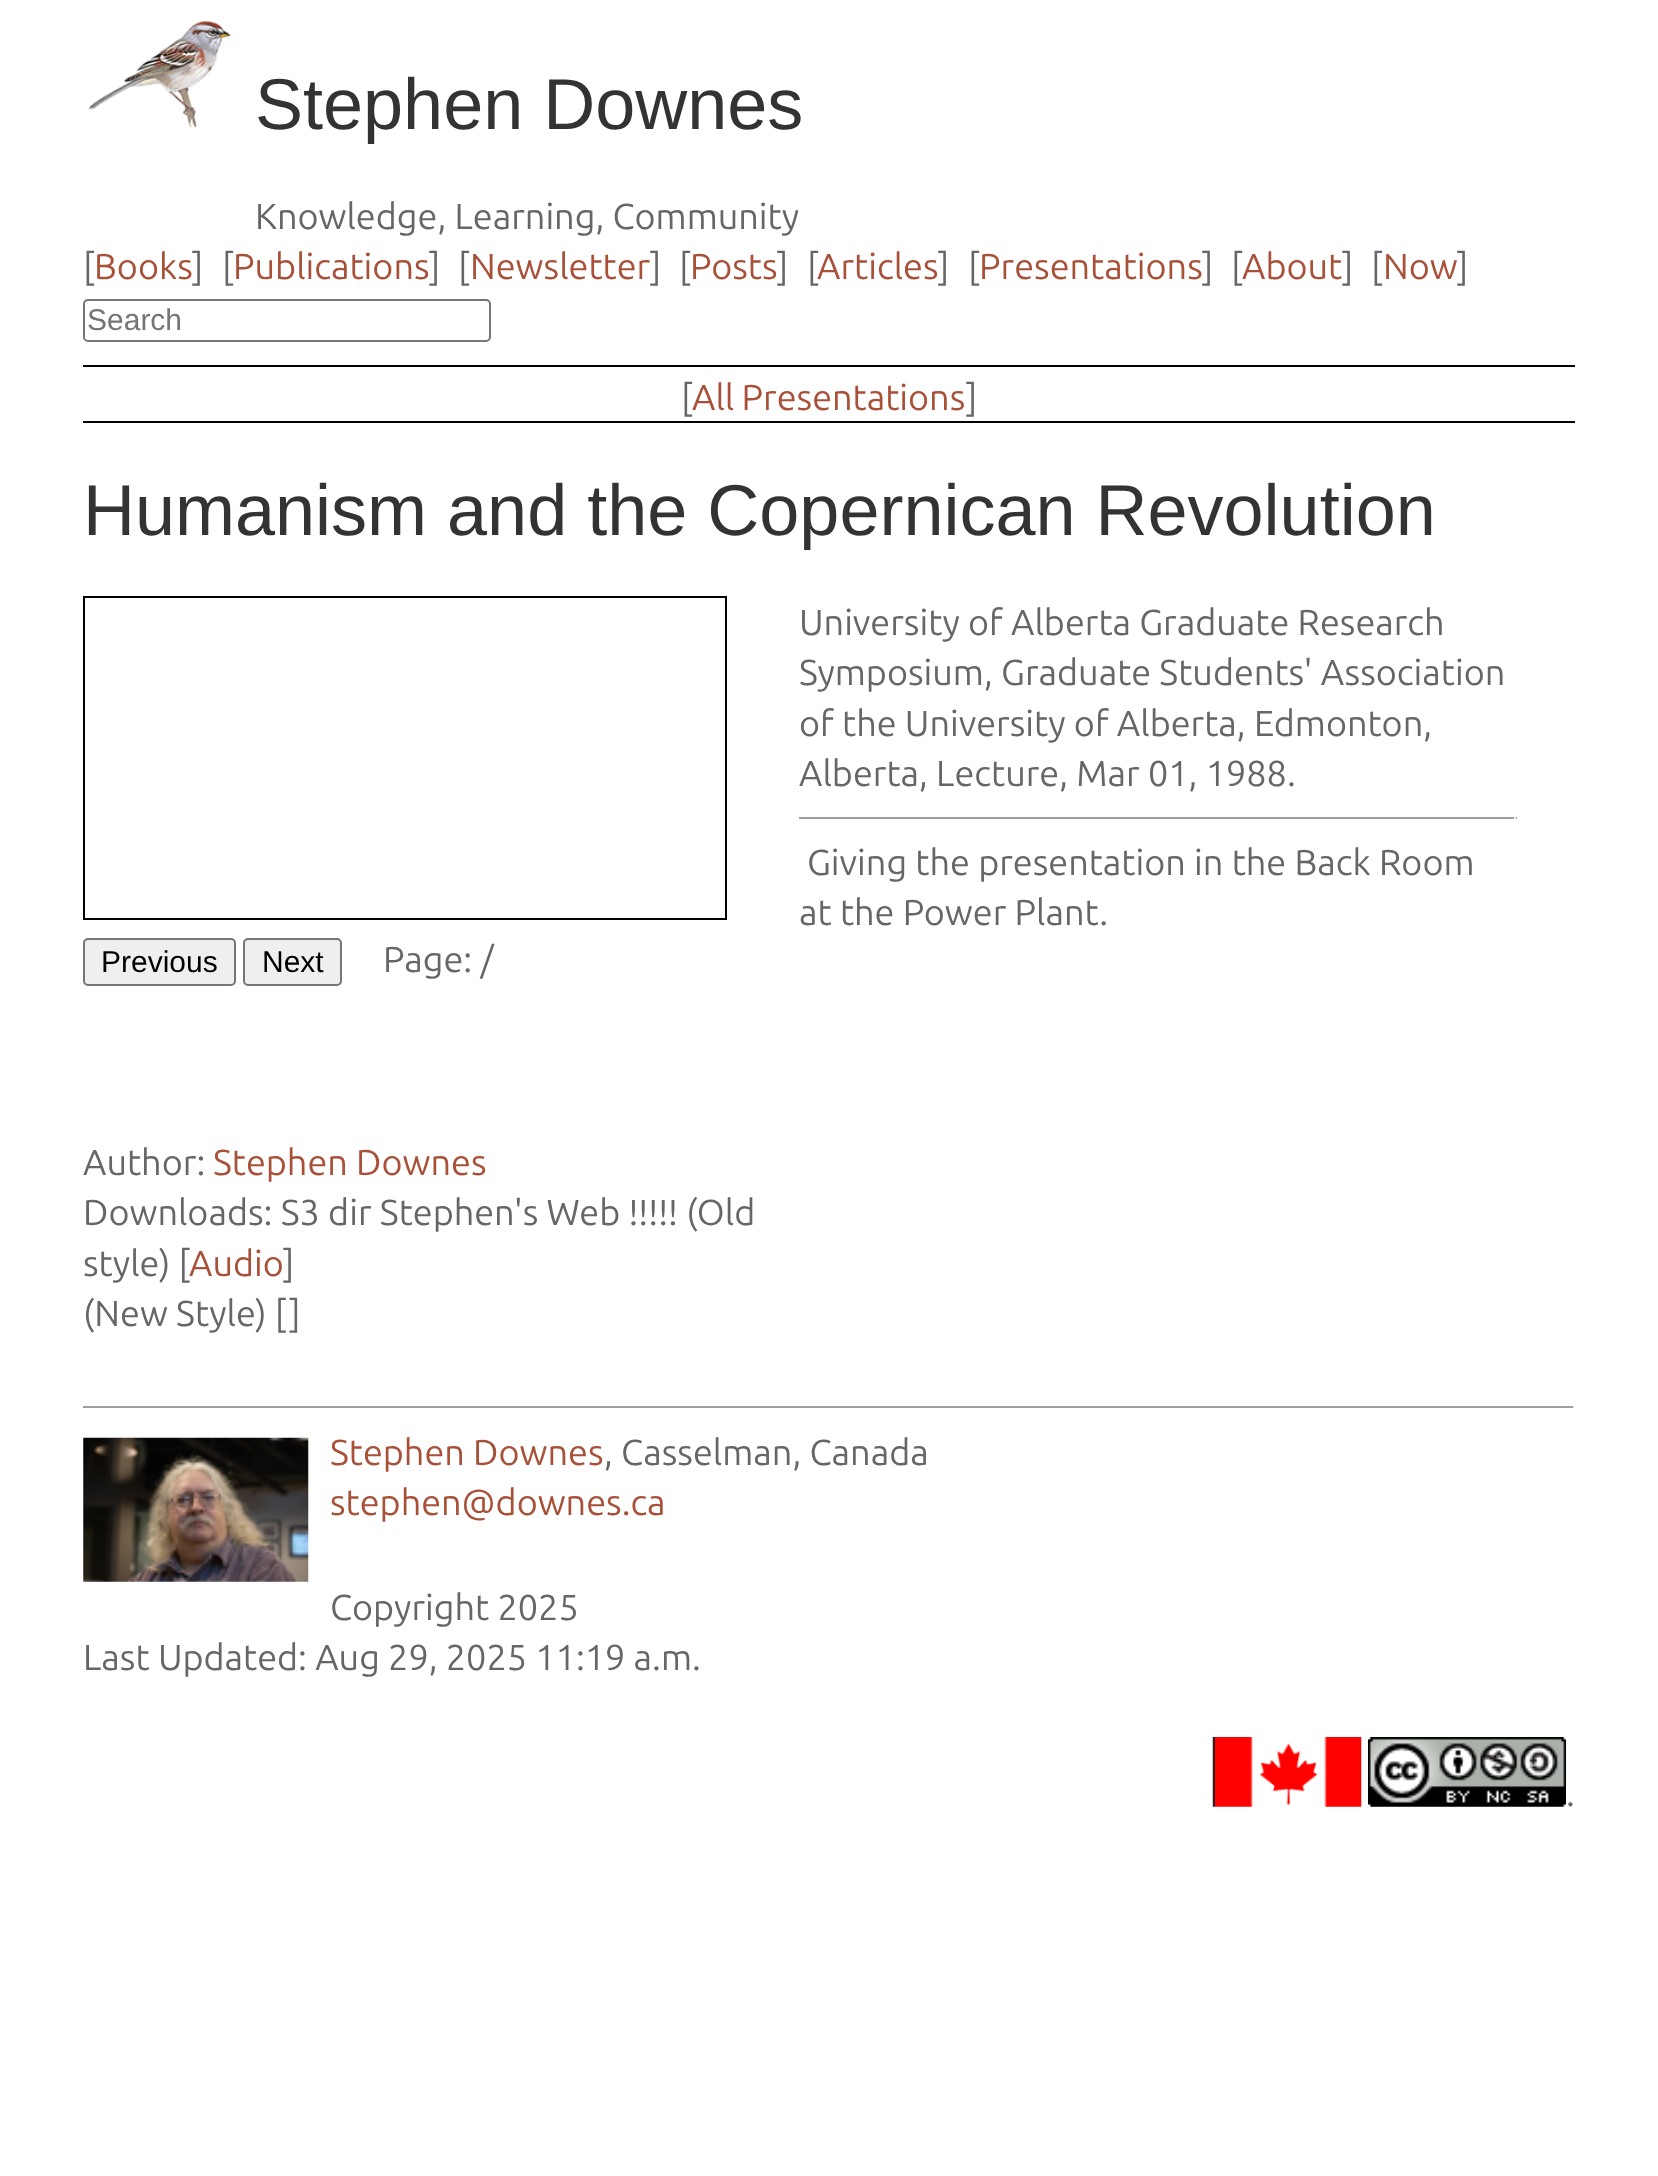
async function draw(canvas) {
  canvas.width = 1658
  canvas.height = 2176
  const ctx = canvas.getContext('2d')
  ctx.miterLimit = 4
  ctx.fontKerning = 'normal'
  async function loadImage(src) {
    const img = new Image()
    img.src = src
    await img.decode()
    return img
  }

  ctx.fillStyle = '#fff'
  ctx.fillRect(0, 0, 1658, 2176)
  ctx.drawImage(await loadImage('image0.png'), 88, 21, 143, 107)
  ctx.font = '72px Liberation Sans'
  ctx.fillStyle = '#333'
  ctx.fillText('Stephen Downes', 255, 129)
  ctx.font = '36px Ubuntu'
  ctx.fillStyle = '#666'
  ctx.fillText('Knowledge, Learning, Community', 255, 229)
  ctx.fillStyle = '#000'
  ctx.fillRect(83, 365, 1492, 2)
  ctx.fillStyle = '#666'
  ctx.fillText('[', 83, 279)
  ctx.fillStyle = '#a85038'
  ctx.fillText('Books', 94, 279)
  ctx.fillStyle = '#666'
  ctx.fillText(']', 192, 279)
  ctx.fillText('[', 222, 279)
  ctx.fillStyle = '#a85038'
  ctx.fillText('Publications', 233, 279)
  ctx.fillStyle = '#666'
  ctx.fillText(']', 429, 279)
  ctx.fillText('[', 458, 279)
  ctx.fillStyle = '#a85038'
  ctx.fillText('Newsletter', 470, 279)
  ctx.fillStyle = '#666'
  ctx.fillText(']', 650, 279)
  ctx.fillText('[', 679, 279)
  ctx.fillStyle = '#a85038'
  ctx.fillText('Posts', 690, 279)
  ctx.fillStyle = '#666'
  ctx.fillText(']', 777, 279)
  ctx.fillText('[', 807, 279)
  ctx.fillStyle = '#a85038'
  ctx.fillText('Articles', 817, 279)
  ctx.fillStyle = '#666'
  ctx.fillText(']', 938, 279)
  ctx.fillText('[', 968, 279)
  ctx.fillStyle = '#a85038'
  ctx.fillText('Presentations', 979, 279)
  ctx.fillStyle = '#666'
  ctx.fillText(']', 1202, 279)
  ctx.fillText('[', 1231, 279)
  ctx.fillStyle = '#a85038'
  ctx.fillText('About', 1242, 279)
  ctx.fillStyle = '#666'
  ctx.fillText(']', 1342, 279)
  ctx.fillText('[', 1371, 279)
  ctx.fillStyle = '#a85038'
  ctx.fillText('Now', 1383, 279)
  ctx.fillStyle = '#666'
  ctx.fillText(']', 1457, 279)
  ctx.beginPath()
  ctx.roundRect(84, 300, 406, 41, 4)
  ctx.strokeStyle = '#767676'
  ctx.lineWidth = 2
  ctx.stroke()
  ctx.font = '30px Liberation Sans'
  ctx.fillStyle = '#757575'
  ctx.fillText('Search', 87, 330)
  ctx.fillStyle = '#000'
  ctx.fillRect(83, 421, 1492, 2)
  ctx.font = '36px Ubuntu'
  ctx.fillStyle = '#666'
  ctx.fillText('[', 681, 410)
  ctx.wordSpacing = '-1px'
  ctx.fillStyle = '#a85038'
  ctx.fillText('All Presentations', 692, 410)
  ctx.wordSpacing = '0px'
  ctx.fillStyle = '#666'
  ctx.fillText(']', 966, 410)
  ctx.font = '72px Liberation Sans'
  ctx.fillStyle = '#333'
  ctx.fillText('Humanism and the Copernican Revolution', 83, 535)
  ctx.font = '36px Ubuntu'
  ctx.fillStyle = '#666'
  ctx.fillText('University of Alberta Graduate Research', 799, 635)
  ctx.fillText('Symposium, Graduate Students\' Association', 799, 685)
  ctx.fillText('of the University of Alberta, Edmonton,', 799, 736)
  ctx.fillText('Alberta, Lecture, Mar 01, 1988.', 799, 786)
  ctx.fillStyle = '#9f9f9f'
  ctx.fillRect(799, 817, 718, 2)
  ctx.fillStyle = '#eee'
  ctx.fillRect(1514, 817, 2, 2)
  ctx.fillStyle = '#666'
  ctx.fillText('Giving the presentation in the Back Room', 807, 875)
  ctx.fillText('at the Power Plant.', 799, 925)
  ctx.strokeStyle = '#000'
  ctx.strokeRect(84, 597, 642, 322)
  ctx.fillStyle = '#efefef'
  ctx.beginPath()
  ctx.roundRect(84, 939, 151, 46, 4)
  ctx.fill()
  ctx.strokeStyle = '#767676'
  ctx.stroke()
  ctx.font = '30px Liberation Sans'
  ctx.fillStyle = '#000'
  ctx.fillText('Previous', 101, 972)
  ctx.fillStyle = '#efefef'
  ctx.beginPath()
  ctx.roundRect(244, 939, 97, 46, 4)
  ctx.fill()
  ctx.stroke()
  ctx.fillStyle = '#000'
  ctx.fillText('Next', 262, 972)
  ctx.font = '36px Ubuntu'
  ctx.fillStyle = '#666'
  ctx.fillText('Page: /', 383, 972)
  ctx.fillText('Author:', 83, 1175)
  ctx.fillStyle = '#a85038'
  ctx.fillText('Stephen Downes', 213, 1175)
  ctx.fillStyle = '#666'
  ctx.fillText('Downloads: S3 dir Stephen\'s Web !!!!! (Old', 83, 1225)
  ctx.fillText('style) [', 83, 1276)
  ctx.fillStyle = '#a85038'
  ctx.fillText('Audio', 189, 1276)
  ctx.fillStyle = '#666'
  ctx.fillText(']', 283, 1276)
  ctx.fillText('(New Style) []', 83, 1326)
  ctx.fillStyle = '#9f9f9f'
  ctx.fillRect(83, 1406, 1492, 2)
  ctx.fillStyle = '#eee'
  ctx.fillRect(1573, 1406, 2, 2)
  ctx.drawImage(await loadImage('image1.png'), 83, 1437, 226, 145)
  ctx.fillStyle = '#a85038'
  ctx.fillText('Stephen Downes', 330, 1465)
  ctx.fillStyle = '#666'
  ctx.fillText(', Casselman, Canada', 604, 1465)
  ctx.fillStyle = '#a85038'
  ctx.fillText('stephen@downes.ca', 330, 1515)
  ctx.fillStyle = '#666'
  ctx.fillText('Copyright 2025', 330, 1620)
  ctx.fillText('Last Updated: Aug 29, 2025 11:19 a.m.', 83, 1670)
  ctx.drawImage(await loadImage('image2.png'), 1212, 1737, 150, 70)
  ctx.drawImage(await loadImage('image3.png'), 1368, 1737, 198, 70)
  ctx.fillText('.', 1566, 1806)
}

draw(document.querySelector('canvas'))
